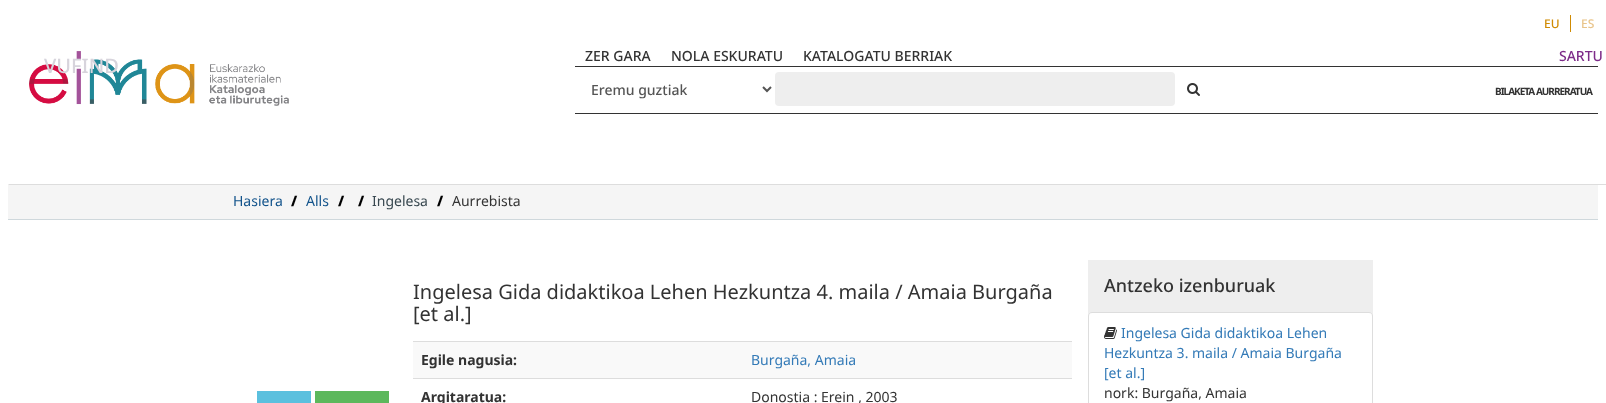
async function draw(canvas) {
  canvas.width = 1606
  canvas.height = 403
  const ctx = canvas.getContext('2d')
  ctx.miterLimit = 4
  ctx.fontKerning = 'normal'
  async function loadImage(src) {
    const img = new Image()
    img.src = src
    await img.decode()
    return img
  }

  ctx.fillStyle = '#fff'
  ctx.fillRect(0, 0, 1606, 403)
  ctx.fillStyle = '#d08b03'
  ctx.fillRect(1570, 15, 1, 17)
  ctx.font = '500 12px Noto Sans'
  ctx.fillText('EU', 1544, 28)
  ctx.fillStyle = '#e9c48a'
  ctx.fillText('ES', 1581, 28)
  ctx.fillStyle = '#ddd'
  ctx.beginPath()
  ctx.moveTo(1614, 185)
  ctx.lineTo(8, 185)
  ctx.lineTo(9, 184)
  ctx.lineTo(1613, 184)
  ctx.closePath()
  ctx.fill()
  ctx.drawImage(await loadImage('image0.png'), 29, 51, 260, 55)
  ctx.font = '500 20px Noto Sans'
  ctx.fillStyle = '#d7d4dc'
  ctx.fillText('VUFIND', 44, 73)
  ctx.font = '500 14px Noto Sans'
  ctx.fillStyle = '#333'
  ctx.fillText('ZER GARA', 585, 61)
  ctx.fillText('NOLA ESKURATU', 671, 61)
  ctx.fillText('KATALOGATU BERRIAK', 803, 61)
  ctx.fillStyle = '#7d2c89'
  ctx.fillText('SARTU', 1559, 61)
  ctx.fillStyle = '#333'
  ctx.fillRect(575, 66, 1023, 1)
  ctx.fillRect(575, 113, 1023, 1)
  ctx.beginPath()
  ctx.moveTo(763, 87)
  ctx.lineTo(767, 91)
  ctx.lineTo(771, 87)
  ctx.strokeStyle = '#555'
  ctx.lineWidth = 2
  ctx.stroke()
  ctx.fillStyle = '#555'
  ctx.fillText('Eremu guztiak', 591, 95)
  ctx.fillStyle = '#eee'
  ctx.beginPath()
  ctx.roundRect(775, 72, 400, 34, 4)
  ctx.fill()
  ctx.drawImage(await loadImage('image1.png'), 1187, 83, 13, 13)
  ctx.letterSpacing = '-1px'
  ctx.font = 'bold 10px Noto Sans'
  ctx.fillStyle = '#333'
  ctx.fillText('BILAKETA AURRERATUA', 1495, 95)
  ctx.fillStyle = '#f5f5f5'
  ctx.fillRect(8, 185, 1590, 34)
  ctx.fillStyle = '#cfd8dc'
  ctx.fillRect(8, 219, 1590, 1)
  ctx.letterSpacing = '0px'
  ctx.font = '14px Noto Sans'
  ctx.fillStyle = '#12538b'
  ctx.fillText('Hasiera', 233, 206)
  ctx.font = '900 14px Noto Sans'
  ctx.fillStyle = '#000'
  ctx.fillText('/', 291, 206)
  ctx.font = '14px Noto Sans'
  ctx.fillStyle = '#12538b'
  ctx.fillText('Alls', 306, 206)
  ctx.font = '900 14px Noto Sans'
  ctx.fillStyle = '#000'
  ctx.fillText('/', 338, 206)
  ctx.fillText('/', 358, 206)
  ctx.font = '14px Noto Sans'
  ctx.fillStyle = '#37474f'
  ctx.fillText('Ingelesa', 372, 206)
  ctx.font = '900 14px Noto Sans'
  ctx.fillStyle = '#000'
  ctx.fillText('/', 437, 206)
  ctx.font = '14px Noto Sans'
  ctx.fillStyle = '#333'
  ctx.fillText('Aurrebista', 452, 206)
  ctx.fillStyle = '#5bc0de'
  ctx.fillRect(257, 391, 54, 12)
  ctx.fillStyle = '#5cb85c'
  ctx.fillRect(315, 391, 74, 12)
  ctx.font = '20px Noto Sans'
  ctx.fillStyle = '#333'
  ctx.fillText('Ingelesa Gida didaktikoa Lehen Hezkuntza 4. maila / Amaia Burgaña', 413, 299)
  ctx.fillText('[et al.]', 413, 321)
  ctx.fillStyle = '#f9f9f9'
  ctx.fillRect(413, 342, 659, 36)
  ctx.font = 'bold 14px Noto Sans'
  ctx.fillStyle = '#333'
  ctx.fillText('Egile nagusia:', 421, 365)
  ctx.fillStyle = '#ddd'
  ctx.fillRect(413, 341, 659, 1)
  ctx.font = '14px Noto Sans'
  ctx.fillStyle = '#337ab7'
  ctx.fillText('Burgaña, Amaia', 751, 365)
  ctx.font = 'bold 14px Noto Sans'
  ctx.fillStyle = '#333'
  ctx.fillText('Argitaratua:', 421, 402)
  ctx.fillStyle = '#ddd'
  ctx.fillRect(413, 378, 659, 1)
  ctx.font = '14px Noto Sans'
  ctx.fillStyle = '#333'
  ctx.fillText('Donostia : Erein , 2003', 751, 402)
  ctx.fillStyle = '#eee'
  ctx.fillRect(1088, 260, 285, 56)
  ctx.font = '500 18px Noto Sans'
  ctx.fillStyle = '#333'
  ctx.fillText('Antzeko izenburuak', 1104, 292)
  ctx.fillStyle = '#fff'
  ctx.beginPath()
  ctx.moveTo(1092, 312.5)
  ctx.lineTo(1369, 312.5)
  ctx.bezierCurveTo(1371, 312.5, 1372.5, 314, 1372.5, 316)
  ctx.lineTo(1372.5, 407.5)
  ctx.lineTo(1088.5, 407.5)
  ctx.lineTo(1088.5, 316)
  ctx.bezierCurveTo(1088.5, 314, 1090, 312.5, 1092, 312.5)
  ctx.closePath()
  ctx.fill()
  ctx.strokeStyle = '#ddd'
  ctx.lineWidth = 1
  ctx.stroke()
  ctx.drawImage(await loadImage('image2.png'), 1104, 327, 13, 12)
  ctx.font = '14px Noto Sans'
  ctx.fillStyle = '#337ab7'
  ctx.fillText('Ingelesa Gida didaktikoa Lehen', 1121, 338)
  ctx.fillText('Hezkuntza 3. maila / Amaia Burgaña', 1104, 358)
  ctx.fillText('[et al.]', 1104, 378)
  ctx.fillStyle = '#333'
  ctx.fillText('nork: Burgaña, Amaia', 1104, 398)
}

draw(document.querySelector('canvas'))
